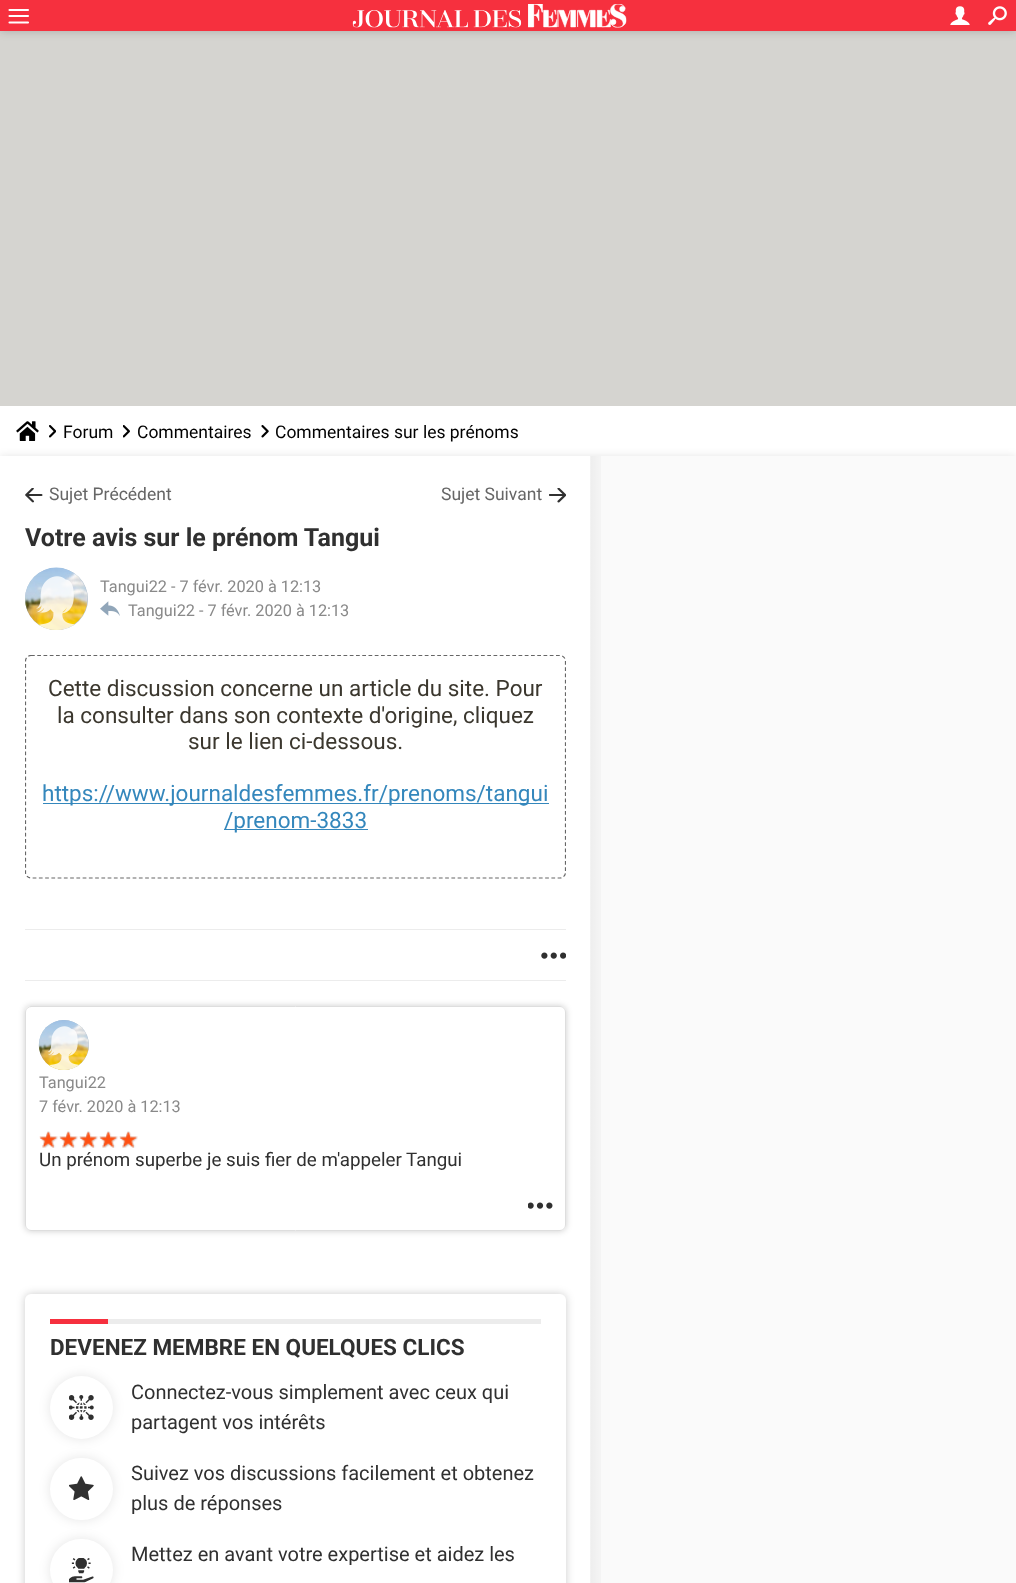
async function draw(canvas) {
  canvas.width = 1016
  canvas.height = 1583
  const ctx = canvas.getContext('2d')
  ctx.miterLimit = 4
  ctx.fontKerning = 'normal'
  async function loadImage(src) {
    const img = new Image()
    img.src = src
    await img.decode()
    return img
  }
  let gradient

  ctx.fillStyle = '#d5d4d0'
  ctx.fillRect(0, 0, 1016, 1583)
  ctx.fillStyle = '#00000033'
  ctx.filter = 'blur(5px)'
  ctx.beginPath()
  ctx.rect(0, 0, 1016, 31)
  ctx.fill()
  ctx.filter = 'none'
  ctx.fillStyle = '#f6303e'
  ctx.fillRect(0, 0, 1016, 31)
  ctx.beginPath()
  ctx.moveTo(9.5, 16)
  ctx.lineTo(28, 16)
  ctx.moveTo(9.5, 10)
  ctx.lineTo(28, 10)
  ctx.moveTo(9.5, 22.5)
  ctx.lineTo(28, 22.5)
  ctx.strokeStyle = '#fff'
  ctx.lineWidth = 2.1
  ctx.lineCap = 'round'
  ctx.stroke()
  ctx.drawImage(await loadImage('image0.png'), 352, 4, 275, 24)
  ctx.drawImage(await loadImage('image1.png'), 950, 6, 20, 19)
  ctx.drawImage(await loadImage('image2.png'), 988, 6, 19, 19)
  ctx.fillStyle = '#fff'
  ctx.fillRect(0, 406, 1016, 50)
  ctx.drawImage(await loadImage('image3.png'), 16, 421, 23, 20)
  ctx.drawImage(await loadImage('image4.png'), 49, 425, 7, 13)
  ctx.font = '17.5px Roboto'
  ctx.fillStyle = '#000'
  ctx.fillText('Forum', 63, 438)
  ctx.drawImage(await loadImage('image5.png'), 123, 425, 7, 13)
  ctx.fillText('Commentaires', 137, 438)
  ctx.drawImage(await loadImage('image6.png'), 261, 425, 8, 13)
  ctx.fillText('Commentaires sur les prénoms', 275, 438)
  ctx.fillStyle = '#0000001a'
  ctx.filter = 'blur(4px)'
  ctx.beginPath()
  ctx.rect(0, 456, 1016, 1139)
  ctx.fill()
  ctx.filter = 'none'
  ctx.fillStyle = '#fff'
  ctx.fillRect(0, 456, 591, 1127)
  ctx.drawImage(await loadImage('image7.png'), 25, 488, 18, 15)
  ctx.fillStyle = '#666'
  ctx.fillText('Sujet Précédent', 49, 500)
  ctx.fillText('Sujet Suivant', 441, 500)
  ctx.drawImage(await loadImage('image8.png'), 549, 488, 17, 15)
  ctx.font = 'bold 25px Roboto'
  ctx.fillStyle = '#303030'
  ctx.fillText('Votre avis sur le prénom Tangui', 25, 546)
  ctx.fillStyle = '#b0becb'
  ctx.beginPath()
  ctx.roundRect(25, 568, 63, 62, 31)
  ctx.fill()
  ctx.drawImage(await loadImage('image9.png'), 25, 567, 63, 63)
  ctx.drawImage(await loadImage('image10.png'), 36, 576, 39, 54)
  ctx.font = '16.25px Roboto'
  ctx.fillStyle = '#898989'
  ctx.fillText('Tangui22 - 7 févr. 2020 à 12:13', 100, 592)
  ctx.drawImage(await loadImage('image11.png'), 100, 601, 20, 15)
  ctx.fillText('Tangui22 - 7 févr. 2020 à 12:13', 128, 616)
  ctx.save()
  ctx.beginPath()
  ctx.rect(25, 655, 541, 249)
  ctx.clip()
  ctx.beginPath()
  ctx.moveTo(31, 655.5)
  ctx.lineTo(560, 655.5)
  ctx.bezierCurveTo(563, 655.5, 565.5, 658, 565.5, 661)
  ctx.lineTo(565.5, 872.5)
  ctx.bezierCurveTo(565.5, 875.5, 563, 878, 560, 878)
  ctx.lineTo(31, 878)
  ctx.bezierCurveTo(28, 878, 25.5, 875.5, 25.5, 872.5)
  ctx.lineTo(25.5, 661)
  ctx.bezierCurveTo(25.5, 658, 28, 655.5, 31, 655.5)
  ctx.closePath()
  ctx.strokeStyle = '#666'
  ctx.lineWidth = 1.2
  ctx.lineCap = 'butt'
  ctx.setLineDash([3.75, 2.5])
  ctx.stroke()
  ctx.restore()
  ctx.font = '22.5px Roboto'
  ctx.fillStyle = '#3b372e'
  ctx.fillText('Cette discussion concerne un article du site. Pour', 48, 696)
  ctx.fillText('la consulter dans son contexte d\'origine, cliquez', 57, 723)
  ctx.fillText('sur le lien ci-dessous.', 188, 749)
  ctx.fillStyle = '#3487bc'
  ctx.fillRect(43, 803, 506, 1)
  ctx.fillText('https://www.journaldesfemmes.fr/prenoms/tangui', 42, 801)
  ctx.fillRect(224, 829, 144, 1)
  ctx.fillText('/prenom-3833', 224, 828)
  ctx.fillStyle = '#ececec'
  ctx.fillRect(25, 929, 541, 1)
  ctx.fillRect(25, 980, 541, 1)
  ctx.drawImage(await loadImage('image12.png'), 541, 952, 25, 7)
  ctx.save()
  ctx.beginPath()
  ctx.moveTo(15, 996)
  ctx.lineTo(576, 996)
  ctx.lineTo(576, 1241)
  ctx.lineTo(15, 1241)
  ctx.closePath()
  ctx.moveTo(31, 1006)
  ctx.lineTo(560, 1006)
  ctx.bezierCurveTo(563.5, 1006, 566, 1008.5, 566, 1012)
  ctx.lineTo(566, 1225)
  ctx.bezierCurveTo(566, 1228.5, 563.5, 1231, 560, 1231)
  ctx.lineTo(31, 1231)
  ctx.bezierCurveTo(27.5, 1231, 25, 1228.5, 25, 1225)
  ctx.lineTo(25, 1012)
  ctx.bezierCurveTo(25, 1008.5, 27.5, 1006, 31, 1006)
  ctx.closePath()
  ctx.clip('evenodd')
  ctx.fillStyle = '#00000033'
  ctx.filter = 'blur(3px)'
  ctx.beginPath()
  ctx.roundRect(25, 1006, 541, 225, 6)
  ctx.fill()
  ctx.filter = 'none'
  ctx.restore()
  ctx.beginPath()
  ctx.roundRect(25.5, 1006.5, 540, 224, 5.5)
  ctx.strokeStyle = '#dedede'
  ctx.lineWidth = 1
  ctx.stroke()
  ctx.fillStyle = '#b0becb'
  ctx.beginPath()
  ctx.arc(64, 1045, 25, 0, 2 * Math.PI)
  ctx.fill()
  ctx.drawImage(await loadImage('image13.png'), 38, 1020, 51, 50)
  ctx.drawImage(await loadImage('image14.png'), 48, 1026, 31, 44)
  ctx.font = '16.25px Roboto'
  ctx.fillStyle = '#898989'
  ctx.fillText('Tangui22', 39, 1088)
  ctx.fillText('7 févr. 2020 à 12:13', 39, 1112)
  ctx.drawImage(await loadImage('image15.png'), 40, 1131, 98, 17)
  ctx.drawImage(await loadImage('image16.png'), 39, 1132, 99, 16)
  ctx.font = '18.75px Roboto'
  ctx.fillStyle = '#303030'
  ctx.fillText('Un prénom superbe je suis fier de m\'appeler Tangui', 39, 1166)
  ctx.drawImage(await loadImage('image17.png'), 528, 1202, 25, 7)
  ctx.fillStyle = '#00000033'
  ctx.filter = 'blur(4px)'
  ctx.beginPath()
  ctx.roundRect(25, 1294, 541, 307, 6)
  ctx.fill()
  ctx.filter = 'none'
  ctx.fillStyle = '#fff'
  ctx.beginPath()
  ctx.roundRect(25, 1294, 541, 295, 6)
  ctx.fill()
  ctx.fillStyle = '#ececec'
  ctx.fillRect(108, 1319, 433, 5)
  ctx.fillStyle = '#f6303e'
  ctx.fillRect(50, 1319, 58, 5)
  ctx.fillStyle = '#0000001a'
  ctx.filter = 'blur(6px)'
  ctx.beginPath()
  ctx.roundRect(50, 1376, 63, 63, 31.5)
  ctx.fill()
  ctx.filter = 'none'
  ctx.font = 'bold 22.5px Roboto'
  ctx.fillStyle = '#303030'
  ctx.fillText('DEVENEZ MEMBRE EN QUELQUES CLICS', 50, 1355)
  ctx.fillStyle = '#fff'
  ctx.beginPath()
  ctx.arc(81.5, 1407.5, 31.5, 0, 2 * Math.PI)
  ctx.fill()
  ctx.drawImage(await loadImage('image18.png'), 69, 1395, 25, 25)
  ctx.font = '20px Roboto'
  ctx.fillStyle = '#303030'
  ctx.fillText('Connectez-vous simplement avec ceux qui', 131, 1399)
  ctx.fillText('partagent vos intérêts', 131, 1429)
  ctx.fillStyle = '#0000001a'
  ctx.filter = 'blur(6px)'
  ctx.beginPath()
  ctx.roundRect(50, 1458, 63, 62, 31)
  ctx.fill()
  ctx.filter = 'none'
  ctx.fillStyle = '#fff'
  ctx.beginPath()
  ctx.roundRect(50, 1458, 63, 62, 31)
  ctx.fill()
  ctx.drawImage(await loadImage('image19.png'), 69, 1476, 25, 24)
  ctx.fillStyle = '#303030'
  ctx.fillText('Suivez vos discussions facilement et obtenez', 131, 1480)
  ctx.fillText('plus de réponses', 131, 1510)
  ctx.fillStyle = '#0000001a'
  ctx.filter = 'blur(6px)'
  ctx.beginPath()
  ctx.roundRect(50, 1539, 63, 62, 31)
  ctx.fill()
  ctx.filter = 'none'
  ctx.fillStyle = '#fff'
  ctx.beginPath()
  ctx.roundRect(50, 1539, 63, 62, 31)
  ctx.fill()
  ctx.drawImage(await loadImage('image20.png'), 69, 1558, 25, 25)
  ctx.fillStyle = '#303030'
  ctx.fillText('Mettez en avant votre expertise et aidez les', 131, 1561)
  ctx.fillStyle = '#fafafa'
  ctx.fillRect(591, 456, 425, 1127)
  gradient = ctx.createLinearGradient(590, 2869, 609, 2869)
  gradient.addColorStop(0, '#0000000d')
  gradient.addColorStop(1, '#00000000')
  ctx.fillStyle = gradient
  ctx.fillRect(590, 456, 11, 1127)
}

draw(document.querySelector('canvas'))
